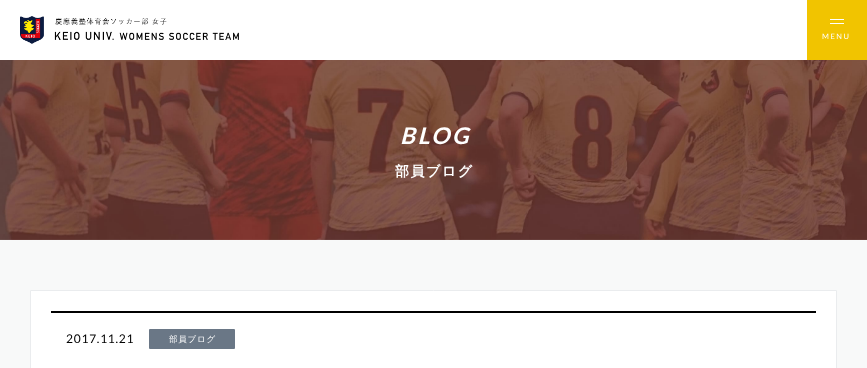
async function draw(canvas) {
  canvas.width = 867
  canvas.height = 368
  const ctx = canvas.getContext('2d')
  ctx.miterLimit = 4
  ctx.fontKerning = 'normal'
  async function loadImage(src) {
    const img = new Image()
    img.src = src
    await img.decode()
    return img
  }

  ctx.fillStyle = '#fff'
  ctx.fillRect(0, 0, 867, 368)
  ctx.drawImage(await loadImage('image0.png'), 20, 16, 219, 28)
  ctx.fillStyle = '#f1c400'
  ctx.fillRect(807, 0, 60, 60)
  ctx.fillStyle = '#fff'
  ctx.fillRect(830, 19, 14, 1)
  ctx.fillRect(830, 23, 14, 1)
  ctx.letterSpacing = '1.5px'
  ctx.font = '7.5px Lato'
  ctx.fillText('MENU', 822, 39)
  ctx.drawImage(await loadImage('image1.png'), 0, 60, 867, 180)
  ctx.letterSpacing = '2.5px'
  ctx.font = 'italic bold 23px Lato'
  ctx.fillText('BLOG', 400, 144)
  ctx.letterSpacing = '1.5px'
  ctx.font = 'bold 14px WenQuanYi Zen Hei'
  ctx.fillText('部員ブログ', 395, 176)
  ctx.fillStyle = '#f8f9f9'
  ctx.fillRect(0, 240, 867, 128)
  ctx.fillStyle = '#fff'
  ctx.beginPath()
  ctx.rect(30.5, 290.5, 806, 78)
  ctx.fill()
  ctx.strokeStyle = '#eaecee'
  ctx.stroke()
  ctx.fillStyle = '#000'
  ctx.fillRect(51, 311, 765, 2)
  ctx.letterSpacing = '0.75px'
  ctx.font = '12px Lato'
  ctx.fillText('2017.11.21', 66, 343)
  ctx.fillStyle = '#6a7786'
  ctx.beginPath()
  ctx.roundRect(149, 329, 86, 20, 1)
  ctx.fill()
  ctx.font = '500 8.5px WenQuanYi Zen Hei'
  ctx.fillStyle = '#fff'
  ctx.fillText('部員ブログ', 169, 342)
}

draw(document.querySelector('canvas'))
